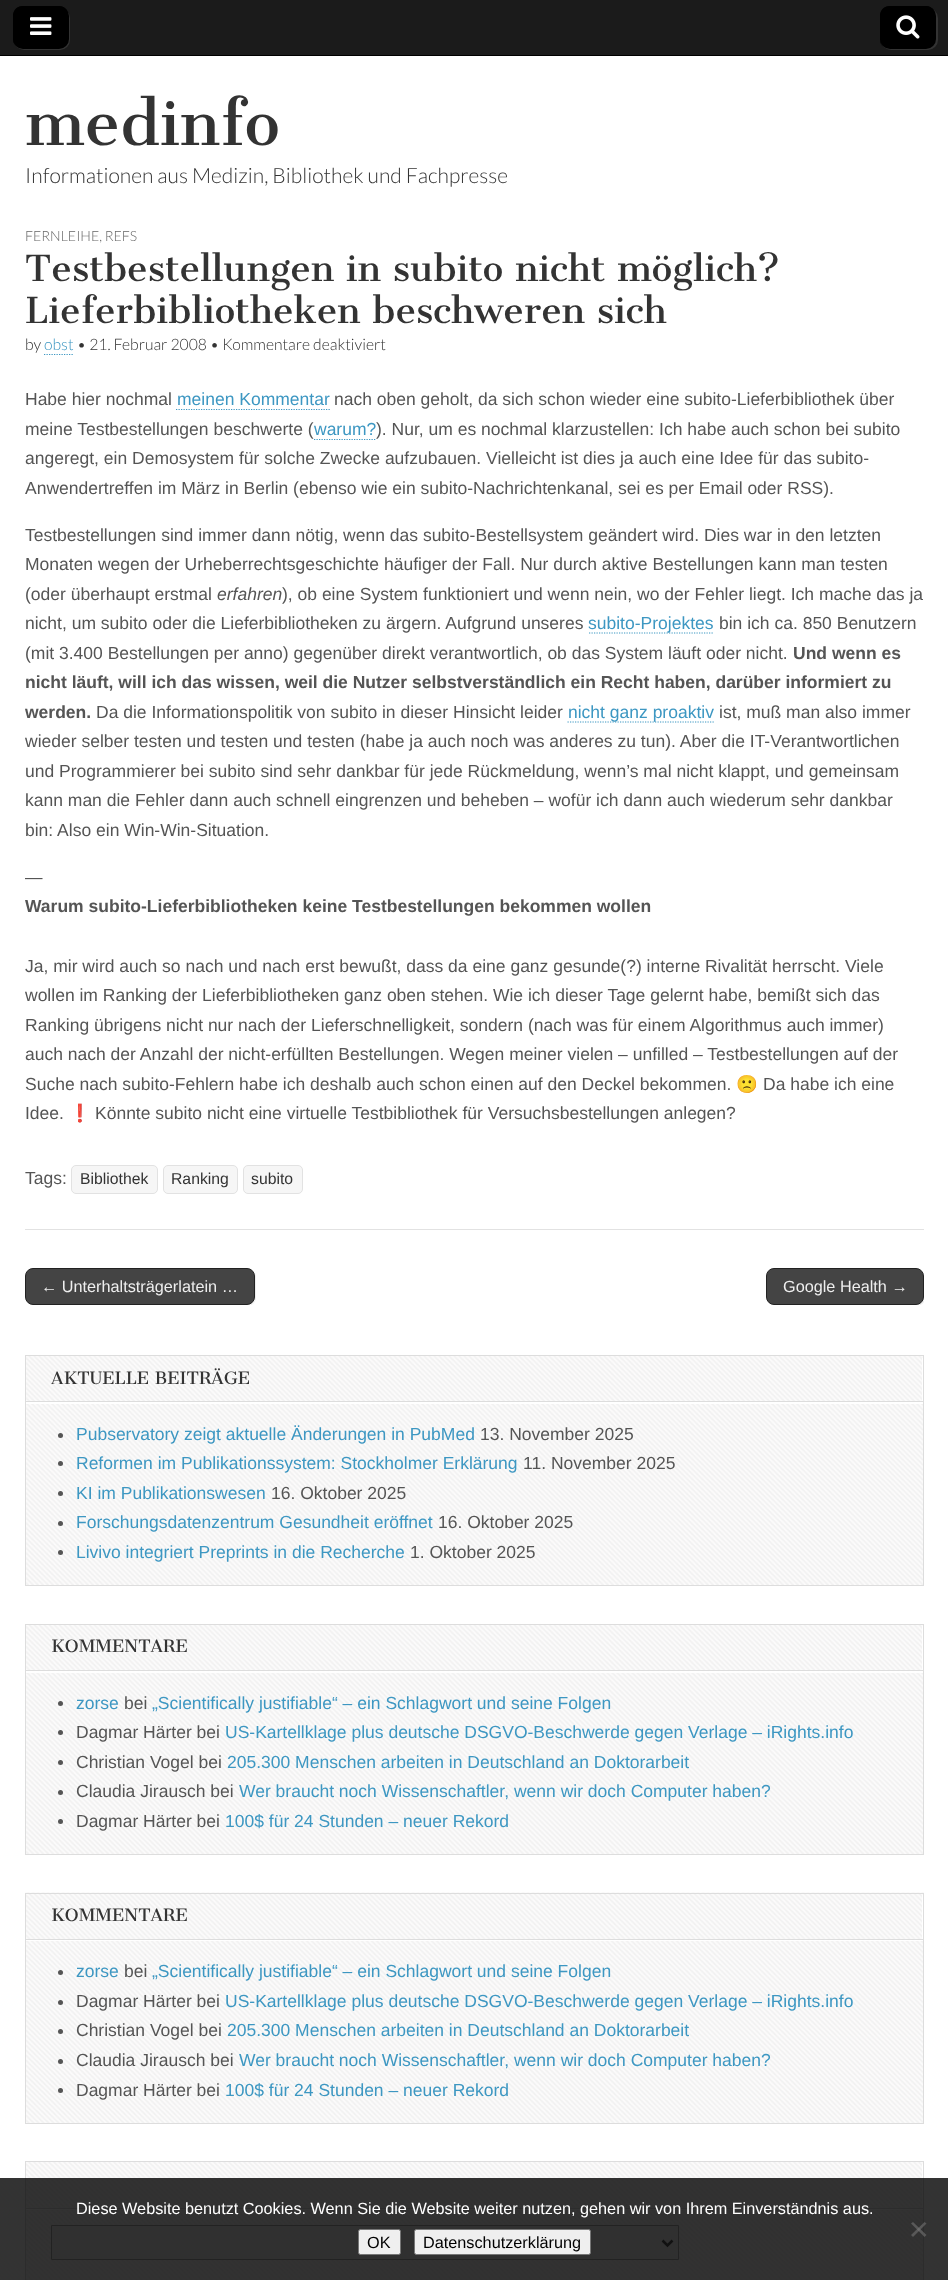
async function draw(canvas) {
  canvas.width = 948
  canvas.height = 2280
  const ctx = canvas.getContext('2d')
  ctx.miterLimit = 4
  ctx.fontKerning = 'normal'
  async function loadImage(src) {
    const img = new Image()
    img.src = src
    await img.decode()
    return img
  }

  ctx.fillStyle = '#fff'
  ctx.fillRect(0, 0, 948, 2280)
  ctx.fillStyle = '#1b1b1b'
  ctx.fillRect(0, 0, 948, 55)
  ctx.fillStyle = '#000'
  ctx.fillRect(0, 55, 948, 1)
  ctx.fillStyle = '#333'
  ctx.filter = 'blur(0.5px)'
  ctx.beginPath()
  ctx.roundRect(14, 8, 56, 42, 10)
  ctx.fill()
  ctx.filter = 'none'
  ctx.fillStyle = '#000'
  ctx.beginPath()
  ctx.roundRect(13, 6, 56, 43, 10)
  ctx.fill()
  ctx.beginPath()
  ctx.moveTo(24, 8)
  ctx.lineTo(60, 8)
  ctx.bezierCurveTo(63, 8, 66, 9, 68, 12)
  ctx.bezierCurveTo(66, 8, 63, 6, 59, 6)
  ctx.lineTo(23, 6)
  ctx.bezierCurveTo(17, 6, 13, 10, 13, 16)
  ctx.lineTo(13, 39)
  ctx.bezierCurveTo(13, 41, 14, 44, 15, 45)
  ctx.bezierCurveTo(13, 41, 14, 34, 14, 29)
  ctx.bezierCurveTo(14, 21, 12, 8, 24, 8)
  ctx.closePath()
  ctx.fill()
  ctx.drawImage(await loadImage('image0.png'), 30, 17, 22, 18)
  ctx.fillStyle = '#333'
  ctx.filter = 'blur(0.5px)'
  ctx.beginPath()
  ctx.roundRect(881, 8, 57, 42, 10)
  ctx.fill()
  ctx.filter = 'none'
  ctx.fillStyle = '#000'
  ctx.beginPath()
  ctx.roundRect(880, 6, 56, 43, 10)
  ctx.fill()
  ctx.beginPath()
  ctx.moveTo(891, 8)
  ctx.lineTo(928, 8)
  ctx.bezierCurveTo(930, 8, 932, 9, 934, 10)
  ctx.bezierCurveTo(932, 8, 929, 6, 926, 6)
  ctx.lineTo(890, 6)
  ctx.bezierCurveTo(884, 6, 880, 10, 880, 16)
  ctx.lineTo(880, 39)
  ctx.bezierCurveTo(880, 42, 881, 45, 883, 47)
  ctx.bezierCurveTo(879, 42, 881, 34, 881, 29)
  ctx.bezierCurveTo(881, 21, 879, 8, 891, 8)
  ctx.closePath()
  ctx.fill()
  ctx.drawImage(await loadImage('image1.png'), 896, 15, 24, 24)
  ctx.font = '60px Cantata One'
  ctx.fillStyle = '#333'
  ctx.fillText('medinfo', 25, 145)
  ctx.font = '300 21px Lato'
  ctx.fillText('Informationen aus Medizin, Bibliothek und Fachpresse', 25, 183)
  ctx.fillStyle = '#e2e2e2'
  ctx.fillRect(25, 1229, 899, 1)
  ctx.font = '300 14px Lato'
  ctx.fillStyle = '#666'
  ctx.fillText('FERNLEIHE, REFS', 25, 241)
  ctx.font = '35px Cantata One'
  ctx.fillStyle = '#333'
  ctx.fillText('Testbestellungen in subito nicht möglich?', 25, 281)
  ctx.fillText('Lieferbibliotheken beschweren sich', 25, 323)
  ctx.font = '300 15.75px Lato'
  ctx.fillText('by', 25, 350)
  ctx.fillStyle = '#3d97c2'
  ctx.fillText('obst', 44, 350)
  ctx.beginPath()
  ctx.moveTo(44, 354.5)
  ctx.lineTo(74, 354.5)
  ctx.strokeStyle = '#3d97c2'
  ctx.lineWidth = 1.2
  ctx.setLineDash([1.25, 1.25])
  ctx.stroke()
  ctx.fillStyle = '#333'
  ctx.fillText('• 21. Februar 2008 • Kommentare deaktiviert', 77, 350)
  ctx.font = '17.5px Liberation Sans'
  ctx.fillStyle = '#555'
  ctx.fillText('Habe hier nochmal', 25, 405)
  ctx.fillStyle = '#3d97c2'
  ctx.fillText('meinen Kommentar', 177, 405)
  ctx.beginPath()
  ctx.moveTo(176, 409.5)
  ctx.lineTo(330, 409.5)
  ctx.stroke()
  ctx.fillStyle = '#555'
  ctx.fillText('nach oben geholt, da sich schon wieder eine subito-Lieferbibliothek über', 334, 405)
  ctx.fillText('meine Testbestellungen beschwerte (', 25, 435)
  ctx.fillStyle = '#3d97c2'
  ctx.fillText('warum?', 314, 435)
  ctx.beginPath()
  ctx.moveTo(314, 439.5)
  ctx.lineTo(376, 439.5)
  ctx.stroke()
  ctx.fillStyle = '#555'
  ctx.fillText('). Nur, um es nochmal klarzustellen: Ich habe auch schon bei subito', 376, 435)
  ctx.fillText('angeregt, ein Demosystem für solche Zwecke aufzubauen. Vielleicht ist dies ja auch eine Idee für das subito-', 25, 464)
  ctx.fillText('Anwendertreffen im März in Berlin (ebenso wie ein subito-Nachrichtenkanal, sei es per Email oder RSS).', 25, 494)
  ctx.fillText('Testbestellungen sind immer dann nötig, wenn das subito-Bestellsystem geändert wird. Dies war in den letzten', 25, 541)
  ctx.fillText('Monaten wegen der Urheberrechtsgeschichte häufiger der Fall. Nur durch aktive Bestellungen kann man testen', 25, 570)
  ctx.fillText('(oder überhaupt erstmal', 25, 600)
  ctx.font = 'italic 17.5px Liberation Sans'
  ctx.fillText('erfahren', 217, 600)
  ctx.font = '17.5px Liberation Sans'
  ctx.fillText('), ob eine System funktioniert und wenn nein, wo der Fehler liegt. Ich mache das ja', 282, 600)
  ctx.fillText('nicht, um subito oder die Lieferbibliotheken zu ärgern. Aufgrund unseres', 25, 629)
  ctx.beginPath()
  ctx.moveTo(589, 633)
  ctx.lineTo(714, 633)
  ctx.stroke()
  ctx.fillStyle = '#3d97c2'
  ctx.fillText('subito-Projektes', 588, 629)
  ctx.fillStyle = '#555'
  ctx.fillText('bin ich ca. 850 Benutzern', 719, 629)
  ctx.fillText('(mit 3.400 Bestellungen per anno) gegenüber direkt verantwortlich, ob das System läuft oder nicht.', 25, 659)
  ctx.font = 'bold 17.5px Liberation Sans'
  ctx.fillText('Und wenn es', 793, 659)
  ctx.fillText('nicht läuft, will ich das wissen, weil die Nutzer selbstverständlich ein Recht haben, darüber informiert zu', 25, 688)
  ctx.fillText('werden.', 25, 718)
  ctx.font = '17.5px Liberation Sans'
  ctx.fillText('Da die Informationspolitik von subito in dieser Hinsicht leider', 96, 718)
  ctx.beginPath()
  ctx.moveTo(567.5, 722)
  ctx.lineTo(714, 722)
  ctx.stroke()
  ctx.fillStyle = '#3d97c2'
  ctx.fillText('nicht ganz proaktiv', 568, 718)
  ctx.fillStyle = '#555'
  ctx.fillText('ist, muß man also immer', 719, 718)
  ctx.fillText('wieder selber testen und testen und testen (habe ja auch noch was anderes zu tun). Aber die IT-Verantwortlichen', 25, 747)
  ctx.fillText('und Programmierer bei subito sind sehr dankbar für jede Rückmeldung, wenn’s mal nicht klappt, und gemeinsam', 25, 777)
  ctx.fillText('kann man die Fehler dann auch schnell eingrenzen und beheben – wofür ich dann auch wiederum sehr dankbar', 25, 806)
  ctx.fillText('bin: Also ein Win-Win-Situation.', 25, 836)
  ctx.fillText('—', 25, 883)
  ctx.font = 'bold 17.5px Liberation Sans'
  ctx.fillText('Warum subito-Lieferbibliotheken keine Testbestellungen bekommen wollen', 25, 912)
  ctx.font = '17.5px Liberation Sans'
  ctx.fillText('Ja, mir wird auch so nach und nach erst bewußt, dass da eine ganz gesunde(?) interne Rivalität herrscht. Viele', 25, 972)
  ctx.fillText('wollen im Ranking der Lieferbibliotheken ganz oben stehen. Wie ich dieser Tage gelernt habe, bemißt sich das', 25, 1001)
  ctx.fillText('Ranking übrigens nicht nur nach der Lieferschnelligkeit, sondern (nach was für einem Algorithmus auch immer)', 25, 1031)
  ctx.fillText('auch nach der Anzahl der nicht-erfüllten Bestellungen. Wegen meiner vielen – unfilled – Testbestellungen auf der', 25, 1060)
  ctx.fillText('Suche nach subito-Fehlern habe ich deshalb auch schon einen auf den Deckel bekommen.', 25, 1090)
  ctx.font = '17.5px Noto Color Emoji'
  ctx.fillText('🙁', 736, 1090)
  ctx.font = '17.5px Liberation Sans'
  ctx.fillText('Da habe ich eine', 763, 1090)
  ctx.fillText('Idee.', 25, 1119)
  ctx.font = '17.5px Noto Color Emoji'
  ctx.fillText('❗', 69, 1119)
  ctx.font = '17.5px Liberation Sans'
  ctx.fillText('Könnte subito nicht eine virtuelle Testbibliothek für Versuchsbestellungen anlegen?', 95, 1119)
  ctx.fillText('Tags:', 25, 1184)
  ctx.fillStyle = '#f6f6f6'
  ctx.beginPath()
  ctx.roundRect(71.5, 1165.5, 86, 28, 4.5)
  ctx.fill()
  ctx.strokeStyle = '#e2e2e2'
  ctx.lineWidth = 1
  ctx.setLineDash([])
  ctx.stroke()
  ctx.font = '15.75px Liberation Sans'
  ctx.fillStyle = '#333'
  ctx.fillText('Bibliothek', 80, 1184)
  ctx.fillStyle = '#f6f6f6'
  ctx.beginPath()
  ctx.roundRect(163.5, 1165.5, 74, 28, 4.5)
  ctx.fill()
  ctx.stroke()
  ctx.fillStyle = '#333'
  ctx.fillText('Ranking', 171, 1184)
  ctx.fillStyle = '#f6f6f6'
  ctx.beginPath()
  ctx.roundRect(243.5, 1165.5, 59, 28, 4.5)
  ctx.fill()
  ctx.stroke()
  ctx.fillStyle = '#333'
  ctx.fillText('subito', 251, 1184)
  ctx.save()
  ctx.beginPath()
  ctx.rect(25, 1268, 899, 37)
  ctx.clip()
  ctx.fillStyle = '#eee'
  ctx.beginPath()
  ctx.moveTo(29, 1304)
  ctx.bezierCurveTo(30, 1305, 32, 1306, 34, 1306)
  ctx.lineTo(248, 1306)
  ctx.bezierCurveTo(252, 1306, 256, 1302, 256, 1298)
  ctx.lineTo(256, 1277)
  ctx.bezierCurveTo(256, 1275, 255, 1274, 255, 1272)
  ctx.lineTo(255, 1275)
  ctx.lineTo(255, 1298)
  ctx.bezierCurveTo(255, 1302, 252, 1305, 248, 1305)
  ctx.lineTo(32, 1305)
  ctx.bezierCurveTo(31, 1305, 30, 1305, 29, 1304)
  ctx.closePath()
  ctx.fill()
  ctx.restore()
  ctx.fillStyle = '#444'
  ctx.beginPath()
  ctx.roundRect(25.5, 1268.5, 229, 36, 7.5)
  ctx.fill()
  ctx.strokeStyle = '#222'
  ctx.stroke()
  ctx.font = '16.25px Liberation Sans'
  ctx.fillStyle = '#eee'
  ctx.fillText('← Unterhaltsträgerlatein …', 41, 1292)
  ctx.save()
  ctx.beginPath()
  ctx.rect(25, 1268, 899, 37)
  ctx.clip()
  ctx.beginPath()
  ctx.moveTo(772, 1305)
  ctx.lineTo(775, 1306)
  ctx.lineTo(894, 1306)
  ctx.bezierCurveTo(896, 1306, 922, 1311, 925, 1300)
  ctx.lineTo(925, 1288)
  ctx.bezierCurveTo(925, 1283, 927, 1276, 923, 1272)
  ctx.bezierCurveTo(925, 1276, 924, 1286, 924, 1290)
  ctx.lineTo(924, 1299)
  ctx.bezierCurveTo(921, 1310, 894, 1305, 892, 1305)
  ctx.closePath()
  ctx.fill()
  ctx.restore()
  ctx.fillStyle = '#444'
  ctx.beginPath()
  ctx.roundRect(766.5, 1268.5, 157, 36, 7.5)
  ctx.fill()
  ctx.stroke()
  ctx.fillStyle = '#eee'
  ctx.fillText('Google Health →', 783, 1292)
  ctx.drawImage(await loadImage('image2.png'), 26, 1356, 897, 229)
  ctx.strokeStyle = '#ddd'
  ctx.strokeRect(25.5, 1355.5, 898, 230)
  ctx.fillStyle = '#fff'
  ctx.beginPath()
  ctx.moveTo(26, 1358)
  ctx.lineTo(26, 1404)
  ctx.lineTo(923, 1404)
  ctx.lineTo(923, 1358)
  ctx.lineTo(922, 1358)
  ctx.lineTo(922, 1402)
  ctx.lineTo(26, 1402)
  ctx.closePath()
  ctx.fill()
  ctx.fillStyle = '#ddd'
  ctx.fillRect(26, 1401, 897, 1)
  ctx.font = '16.6px Cantata One'
  ctx.fillStyle = '#333'
  ctx.fillText('AKTUELLE BEITRÄGE', 51, 1384)
  ctx.fillStyle = '#555'
  ctx.beginPath()
  ctx.arc(60.5, 1435.5, 2.5, 0, 2 * Math.PI)
  ctx.fill()
  ctx.font = '17.5px Liberation Sans'
  ctx.fillStyle = '#3d97c2'
  ctx.fillText('Pubservatory zeigt aktuelle Änderungen in PubMed', 76, 1440)
  ctx.fillStyle = '#555'
  ctx.fillText('13. November 2025', 480, 1440)
  ctx.beginPath()
  ctx.arc(60.5, 1463.5, 2.5, 0, 2 * Math.PI)
  ctx.fill()
  ctx.fillStyle = '#3d97c2'
  ctx.fillText('Reformen im Publikationssystem: Stockholmer Erklärung', 76, 1469)
  ctx.fillStyle = '#555'
  ctx.fillText('11. November 2025', 523, 1469)
  ctx.beginPath()
  ctx.arc(60.5, 1493.5, 2.5, 0, 2 * Math.PI)
  ctx.fill()
  ctx.fillStyle = '#3d97c2'
  ctx.fillText('KI im Publikationswesen', 76, 1499)
  ctx.fillStyle = '#555'
  ctx.fillText('16. Oktober 2025', 271, 1499)
  ctx.beginPath()
  ctx.arc(60.5, 1523.5, 2.5, 0, 2 * Math.PI)
  ctx.fill()
  ctx.fillStyle = '#3d97c2'
  ctx.fillText('Forschungsdatenzentrum Gesundheit eröffnet', 76, 1528)
  ctx.fillStyle = '#555'
  ctx.fillText('16. Oktober 2025', 438, 1528)
  ctx.beginPath()
  ctx.arc(60.5, 1552.5, 2.5, 0, 2 * Math.PI)
  ctx.fill()
  ctx.fillStyle = '#3d97c2'
  ctx.fillText('Livivo integriert Preprints in die Recherche', 76, 1558)
  ctx.fillStyle = '#555'
  ctx.fillText('1. Oktober 2025', 410, 1558)
  ctx.drawImage(await loadImage('image3.png'), 26, 1625, 897, 229)
  ctx.strokeRect(25.5, 1624.5, 898, 230)
  ctx.fillStyle = '#fff'
  ctx.beginPath()
  ctx.moveTo(26, 1626)
  ctx.lineTo(26, 1673)
  ctx.lineTo(923, 1673)
  ctx.lineTo(923, 1626)
  ctx.lineTo(922, 1626)
  ctx.lineTo(922, 1671)
  ctx.lineTo(26, 1671)
  ctx.closePath()
  ctx.fill()
  ctx.fillStyle = '#ddd'
  ctx.fillRect(26, 1670, 897, 1)
  ctx.font = '16.6px Cantata One'
  ctx.fillStyle = '#333'
  ctx.fillText('KOMMENTARE', 51, 1652)
  ctx.fillStyle = '#555'
  ctx.beginPath()
  ctx.arc(60.5, 1703.5, 2.5, 0, 2 * Math.PI)
  ctx.fill()
  ctx.font = '17.5px Liberation Sans'
  ctx.fillStyle = '#3d97c2'
  ctx.fillText('zorse', 76, 1709)
  ctx.fillStyle = '#555'
  ctx.fillText('bei', 124, 1709)
  ctx.fillStyle = '#3d97c2'
  ctx.fillText('„Scientifically justifiable“ – ein Schlagwort und seine Folgen', 152, 1709)
  ctx.fillStyle = '#555'
  ctx.beginPath()
  ctx.arc(60.5, 1732.5, 2.5, 0, 2 * Math.PI)
  ctx.fill()
  ctx.fillText('Dagmar Härter bei', 76, 1738)
  ctx.fillStyle = '#3d97c2'
  ctx.fillText('US-Kartellklage plus deutsche DSGVO-Beschwerde gegen Verlage – iRights.info', 225, 1738)
  ctx.fillStyle = '#555'
  ctx.beginPath()
  ctx.arc(60.5, 1762.5, 2.5, 0, 2 * Math.PI)
  ctx.fill()
  ctx.fillText('Christian Vogel bei', 76, 1768)
  ctx.fillStyle = '#3d97c2'
  ctx.fillText('205.300 Menschen arbeiten in Deutschland an Doktorarbeit', 227, 1768)
  ctx.fillStyle = '#555'
  ctx.beginPath()
  ctx.arc(60.5, 1792.5, 2.5, 0, 2 * Math.PI)
  ctx.fill()
  ctx.fillText('Claudia Jirausch bei', 76, 1797)
  ctx.fillStyle = '#3d97c2'
  ctx.fillText('Wer braucht noch Wissenschaftler, wenn wir doch Computer haben?', 239, 1797)
  ctx.fillStyle = '#555'
  ctx.beginPath()
  ctx.arc(60.5, 1821.5, 2.5, 0, 2 * Math.PI)
  ctx.fill()
  ctx.fillText('Dagmar Härter bei', 76, 1827)
  ctx.fillStyle = '#3d97c2'
  ctx.fillText('100$ für 24 Stunden – neuer Rekord', 225, 1827)
  ctx.drawImage(await loadImage('image4.png'), 25, 1892, 899, 231)
  ctx.strokeRect(25.5, 1893.5, 898, 230)
  ctx.fillStyle = '#fff'
  ctx.beginPath()
  ctx.moveTo(26, 1895)
  ctx.lineTo(26, 1941)
  ctx.lineTo(923, 1941)
  ctx.lineTo(923, 1895)
  ctx.lineTo(922, 1895)
  ctx.lineTo(922, 1940)
  ctx.lineTo(26, 1940)
  ctx.closePath()
  ctx.fill()
  ctx.fillStyle = '#ddd'
  ctx.fillRect(26, 1939, 897, 1)
  ctx.font = '16.6px Cantata One'
  ctx.fillStyle = '#333'
  ctx.fillText('KOMMENTARE', 51, 1921)
  ctx.fillStyle = '#555'
  ctx.beginPath()
  ctx.arc(60.5, 1972.5, 2.5, 0, 2 * Math.PI)
  ctx.fill()
  ctx.font = '17.5px Liberation Sans'
  ctx.fillStyle = '#3d97c2'
  ctx.fillText('zorse', 76, 1977)
  ctx.fillStyle = '#555'
  ctx.fillText('bei', 124, 1977)
  ctx.fillStyle = '#3d97c2'
  ctx.fillText('„Scientifically justifiable“ – ein Schlagwort und seine Folgen', 152, 1977)
  ctx.fillStyle = '#555'
  ctx.beginPath()
  ctx.arc(60.5, 2002.5, 2.5, 0, 2 * Math.PI)
  ctx.fill()
  ctx.fillText('Dagmar Härter bei', 76, 2007)
  ctx.fillStyle = '#3d97c2'
  ctx.fillText('US-Kartellklage plus deutsche DSGVO-Beschwerde gegen Verlage – iRights.info', 225, 2007)
  ctx.fillStyle = '#555'
  ctx.beginPath()
  ctx.arc(60.5, 2031.5, 2.5, 0, 2 * Math.PI)
  ctx.fill()
  ctx.fillText('Christian Vogel bei', 76, 2036)
  ctx.fillStyle = '#3d97c2'
  ctx.fillText('205.300 Menschen arbeiten in Deutschland an Doktorarbeit', 227, 2036)
  ctx.fillStyle = '#555'
  ctx.beginPath()
  ctx.arc(60.5, 2061.5, 2.5, 0, 2 * Math.PI)
  ctx.fill()
  ctx.fillText('Claudia Jirausch bei', 76, 2066)
  ctx.fillStyle = '#3d97c2'
  ctx.fillText('Wer braucht noch Wissenschaftler, wenn wir doch Computer haben?', 239, 2066)
  ctx.fillStyle = '#555'
  ctx.beginPath()
  ctx.arc(60.5, 2090.5, 2.5, 0, 2 * Math.PI)
  ctx.fill()
  ctx.fillText('Dagmar Härter bei', 76, 2096)
  ctx.fillStyle = '#3d97c2'
  ctx.fillText('100$ für 24 Stunden – neuer Rekord', 225, 2096)
  ctx.drawImage(await loadImage('image5.png'), 26, 2162, 897, 118)
  ctx.strokeRect(25.5, 2161.5, 898, 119)
  ctx.fillStyle = '#fff'
  ctx.beginPath()
  ctx.moveTo(26, 2164)
  ctx.lineTo(26, 2210)
  ctx.lineTo(923, 2210)
  ctx.lineTo(923, 2164)
  ctx.lineTo(922, 2164)
  ctx.lineTo(922, 2209)
  ctx.lineTo(26, 2209)
  ctx.closePath()
  ctx.fill()
  ctx.fillStyle = '#ddd'
  ctx.fillRect(26, 2208, 897, 1)
  ctx.fillStyle = '#efefef'
  ctx.beginPath()
  ctx.rect(51.5, 2225.5, 627, 34)
  ctx.fill()
  ctx.strokeStyle = '#aaa'
  ctx.stroke()
  ctx.beginPath()
  ctx.moveTo(662.5, 2240.5)
  ctx.lineTo(667.5, 2245.5)
  ctx.lineTo(672.5, 2240.5)
  ctx.strokeStyle = '#555'
  ctx.lineWidth = 2.5
  ctx.stroke()
  ctx.fillStyle = '#000000cc'
  ctx.fillRect(0, 2178, 948, 102)
  ctx.font = '16.25px Liberation Sans'
  ctx.fillStyle = '#fff'
  ctx.fillText('Diese Website benutzt Cookies. Wenn Sie die Website weiter nutzen, gehen wir von Ihrem Einverständnis aus.', 76, 2214)
  ctx.fillStyle = '#80808080'
  ctx.beginPath()
  ctx.moveTo(924.5, 2222)
  ctx.lineTo(926.5, 2223.5)
  ctx.lineTo(913, 2237)
  ctx.lineTo(911, 2235)
  ctx.closePath()
  ctx.fill()
  ctx.beginPath()
  ctx.moveTo(911, 2223.5)
  ctx.lineTo(913, 2222)
  ctx.lineTo(926.5, 2235)
  ctx.lineTo(924.5, 2237)
  ctx.closePath()
  ctx.fill()
  ctx.fillStyle = '#efefef'
  ctx.beginPath()
  ctx.roundRect(358.5, 2229.5, 42, 25, 2)
  ctx.fill()
  ctx.strokeStyle = '#767676'
  ctx.lineWidth = 1
  ctx.stroke()
  ctx.fillStyle = '#000'
  ctx.fillText('OK', 367, 2248)
  ctx.fillStyle = '#efefef'
  ctx.beginPath()
  ctx.roundRect(414.5, 2229.5, 176, 25, 2)
  ctx.fill()
  ctx.stroke()
  ctx.fillStyle = '#000'
  ctx.fillText('Datenschutzerklärung', 423, 2248)
}

draw(document.querySelector('canvas'))
